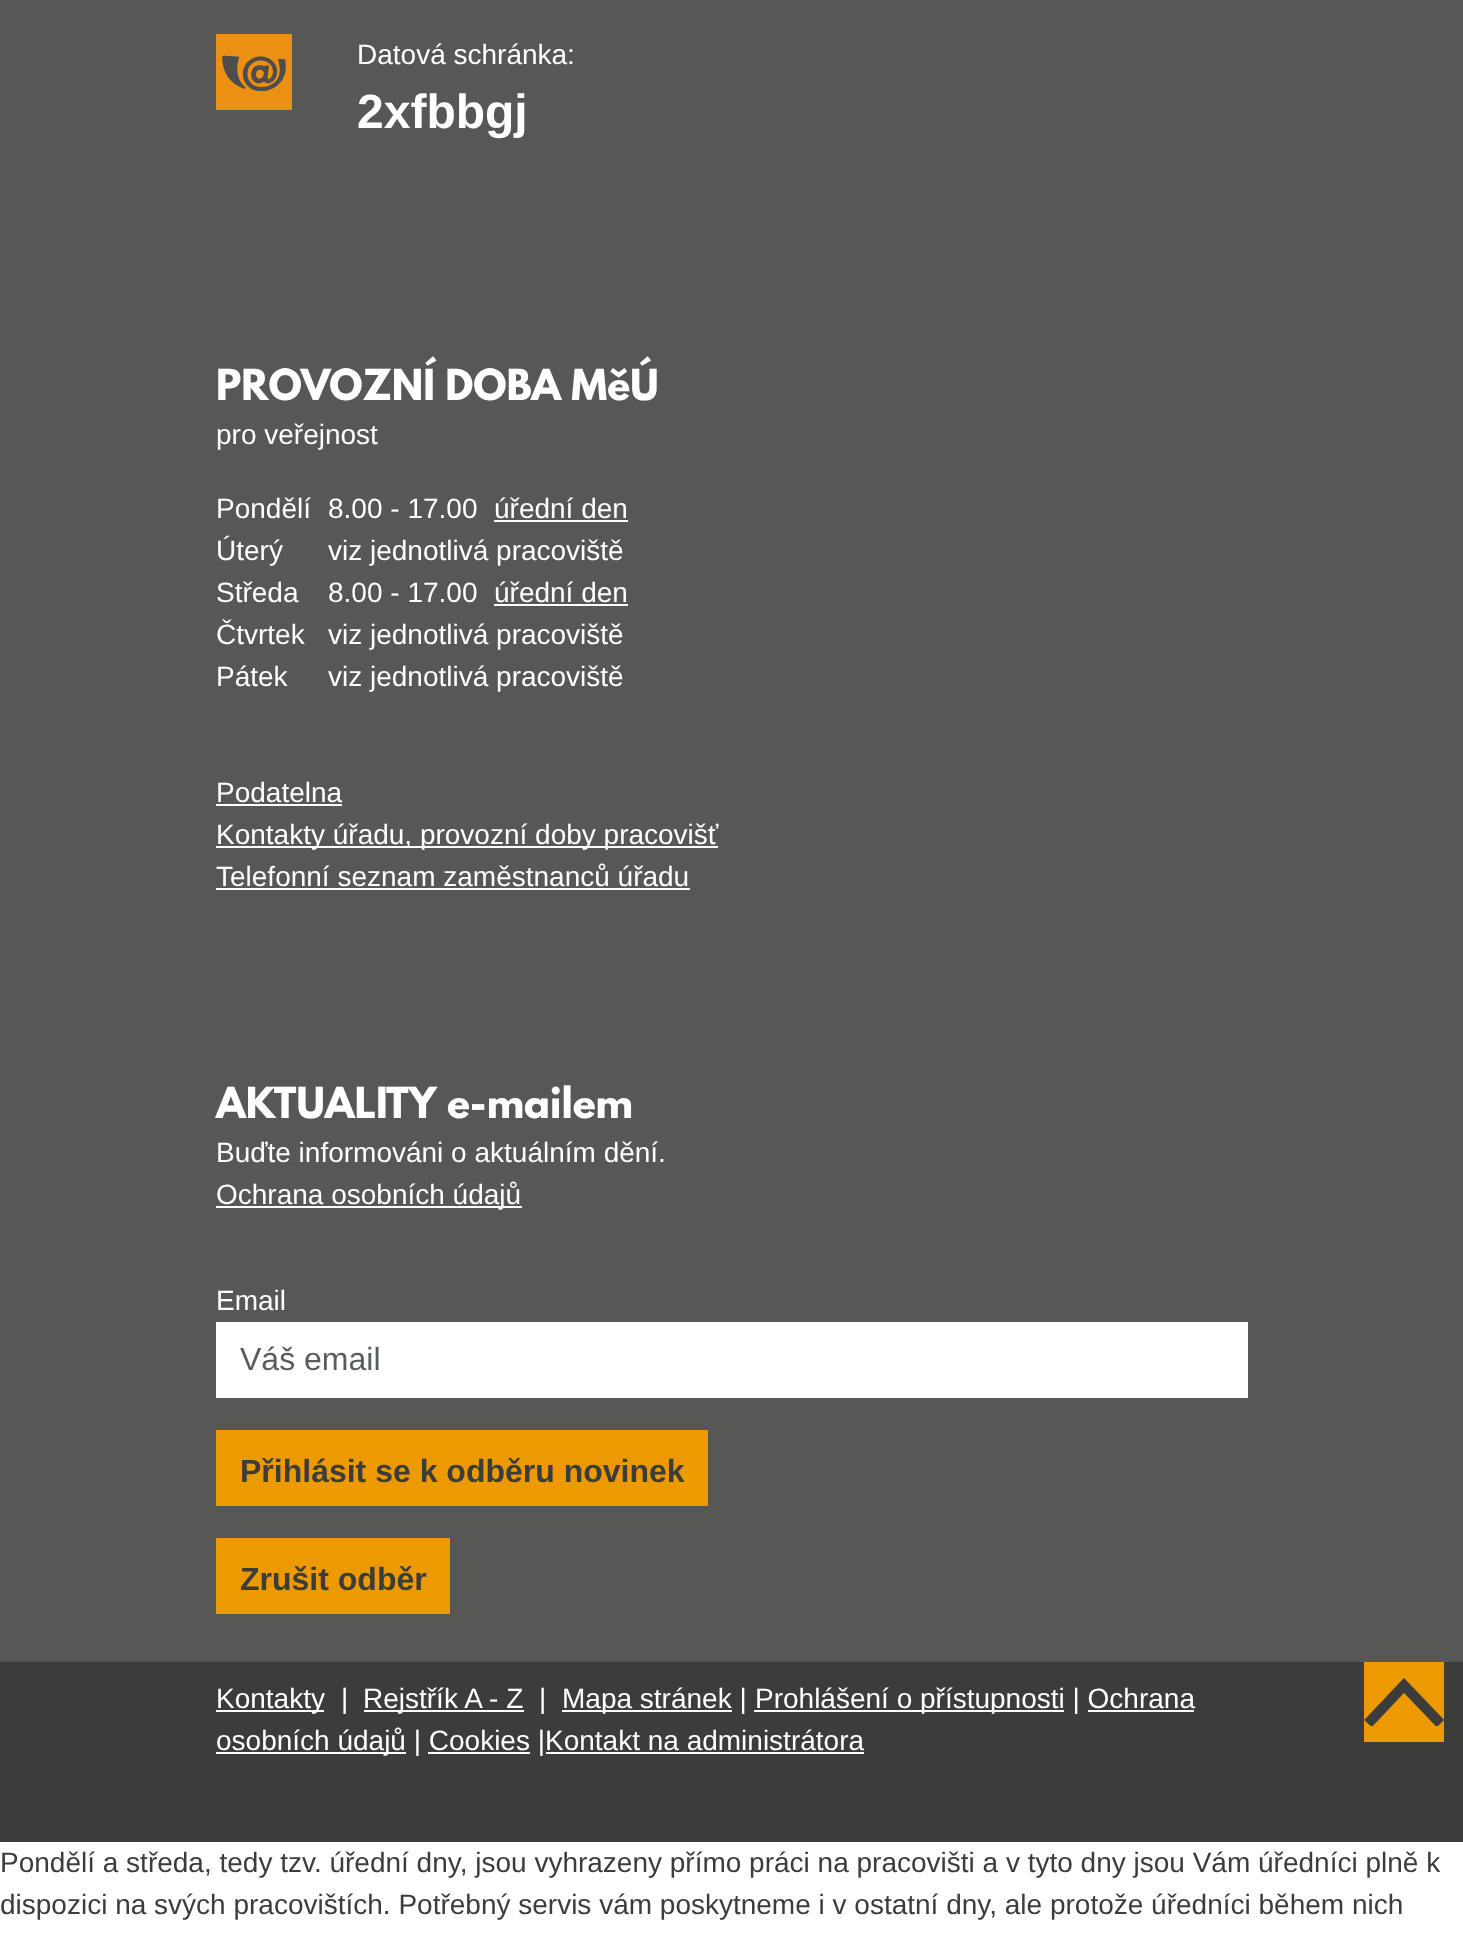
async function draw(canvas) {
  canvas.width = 1463
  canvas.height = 1941
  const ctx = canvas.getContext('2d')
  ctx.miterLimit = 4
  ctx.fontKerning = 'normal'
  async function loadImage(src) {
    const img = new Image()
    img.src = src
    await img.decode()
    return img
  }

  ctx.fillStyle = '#fff'
  ctx.fillRect(0, 0, 1463, 1941)
  ctx.fillStyle = '#575756'
  ctx.fillRect(0, 0, 1463, 1662)
  ctx.drawImage(await loadImage('image0.png'), 216, 34, 76, 76)
  ctx.font = '28px Liberation Sans'
  ctx.fillStyle = '#fff'
  ctx.fillText('Datová schránka:', 357, 64)
  ctx.font = 'bold 48px Liberation Sans'
  ctx.fillText('2xfbbgj', 357, 128)
  ctx.font = 'bold 38px League Spartan'
  ctx.fillText('PROVOZNÍ DOBA MěÚ', 216, 400)
  ctx.font = '28px Liberation Sans'
  ctx.fillText('pro veřejnost', 216, 444)
  ctx.fillText('Pondělí', 216, 518)
  ctx.fillText('8.00 - 17.00', 328, 518)
  ctx.fillText('úřední den', 494, 518)
  ctx.fillRect(494, 520, 134, 2)
  ctx.fillText('Úterý', 216, 560)
  ctx.fillText('viz jednotlivá pracoviště', 328, 560)
  ctx.fillText('Středa', 216, 602)
  ctx.fillText('8.00 - 17.00', 328, 602)
  ctx.fillText('úřední den', 494, 602)
  ctx.fillRect(494, 604, 134, 2)
  ctx.fillText('Čtvrtek', 216, 644)
  ctx.fillText('viz jednotlivá pracoviště', 328, 644)
  ctx.fillText('Pátek', 216, 686)
  ctx.fillText('viz jednotlivá pracoviště', 328, 686)
  ctx.fillText('Podatelna', 216, 802)
  ctx.fillRect(216, 804, 126, 2)
  ctx.fillRect(216, 846, 502, 2)
  ctx.fillText('Kontakty úřadu, provozní doby pracovišť', 216, 844)
  ctx.fillText('Telefonní seznam zaměstnanců úřadu', 216, 886)
  ctx.fillRect(216, 888, 474, 2)
  ctx.font = 'bold 38px League Spartan'
  ctx.fillText('AKTUALITY e-mailem', 216, 1118)
  ctx.font = '28px Liberation Sans'
  ctx.fillText('Buďte informováni o aktuálním dění.', 216, 1162)
  ctx.fillRect(216, 1206, 306, 2)
  ctx.fillText('Ochrana osobních údajů', 216, 1204)
  ctx.fillText('Email', 216, 1310)
  ctx.fillRect(216, 1322, 1032, 76)
  ctx.font = '32px Liberation Sans'
  ctx.fillStyle = '#595c5f'
  ctx.fillText('Váš email', 240, 1370)
  ctx.fillStyle = '#ed9a00'
  ctx.fillRect(216, 1430, 492, 76)
  ctx.font = 'bold 32px Liberation Sans'
  ctx.fillStyle = '#3c3c3b'
  ctx.fillText('Přihlásit se k odběru novinek', 240, 1482)
  ctx.fillStyle = '#ed9a00'
  ctx.fillRect(216, 1538, 234, 76)
  ctx.fillStyle = '#3c3c3b'
  ctx.fillText('Zrušit odběr', 240, 1590)
  ctx.fillRect(0, 1662, 1463, 180)
  ctx.fillStyle = '#fff'
  ctx.fillRect(216, 1710, 108, 2)
  ctx.font = '28px Liberation Sans'
  ctx.fillText('Kontakty', 216, 1708)
  ctx.fillText('|', 341, 1708)
  ctx.fillRect(364, 1710, 160, 2)
  ctx.fillText('Rejstřík A - Z', 363, 1708)
  ctx.fillText('|', 539, 1708)
  ctx.fillRect(562, 1710, 170, 2)
  ctx.fillText('Mapa stránek |', 562, 1708)
  ctx.fillRect(754, 1710, 310, 2)
  ctx.fillText('Prohlášení o přístupnosti | Ochrana', 755, 1708)
  ctx.fillRect(216, 1752, 190, 2)
  ctx.fillText('osobních údajů | Cookies |Kontakt na administrátora', 216, 1750)
  ctx.fillRect(1088, 1710, 106, 2)
  ctx.fillRect(428, 1752, 102, 2)
  ctx.fillRect(546, 1752, 318, 2)
  ctx.fillStyle = '#ed9a00'
  ctx.fillRect(1364, 1662, 80, 80)
  ctx.save()
  ctx.beginPath()
  ctx.rect(1364, 1678, 80, 48)
  ctx.clip()
  ctx.beginPath()
  ctx.moveTo(1440.5, 1723.5)
  ctx.lineTo(1404, 1685.5)
  ctx.lineTo(1368, 1723.5)
  ctx.strokeStyle = '#3c3c3b'
  ctx.lineWidth = 10.4
  ctx.stroke()
  ctx.restore()
  ctx.fillStyle = '#3c3c3b'
  ctx.fillText('Pondělí a středa, tedy tzv. úřední dny, jsou vyhrazeny přímo práci na pracovišti a v tyto dny jsou Vám úředníci plně k', 0, 1872)
  ctx.fillText('dispozici na svých pracovištích. Potřebný servis vám poskytneme i v ostatní dny, ale protože úředníci během nich', 0, 1914)
}

draw(document.querySelector('canvas'))
